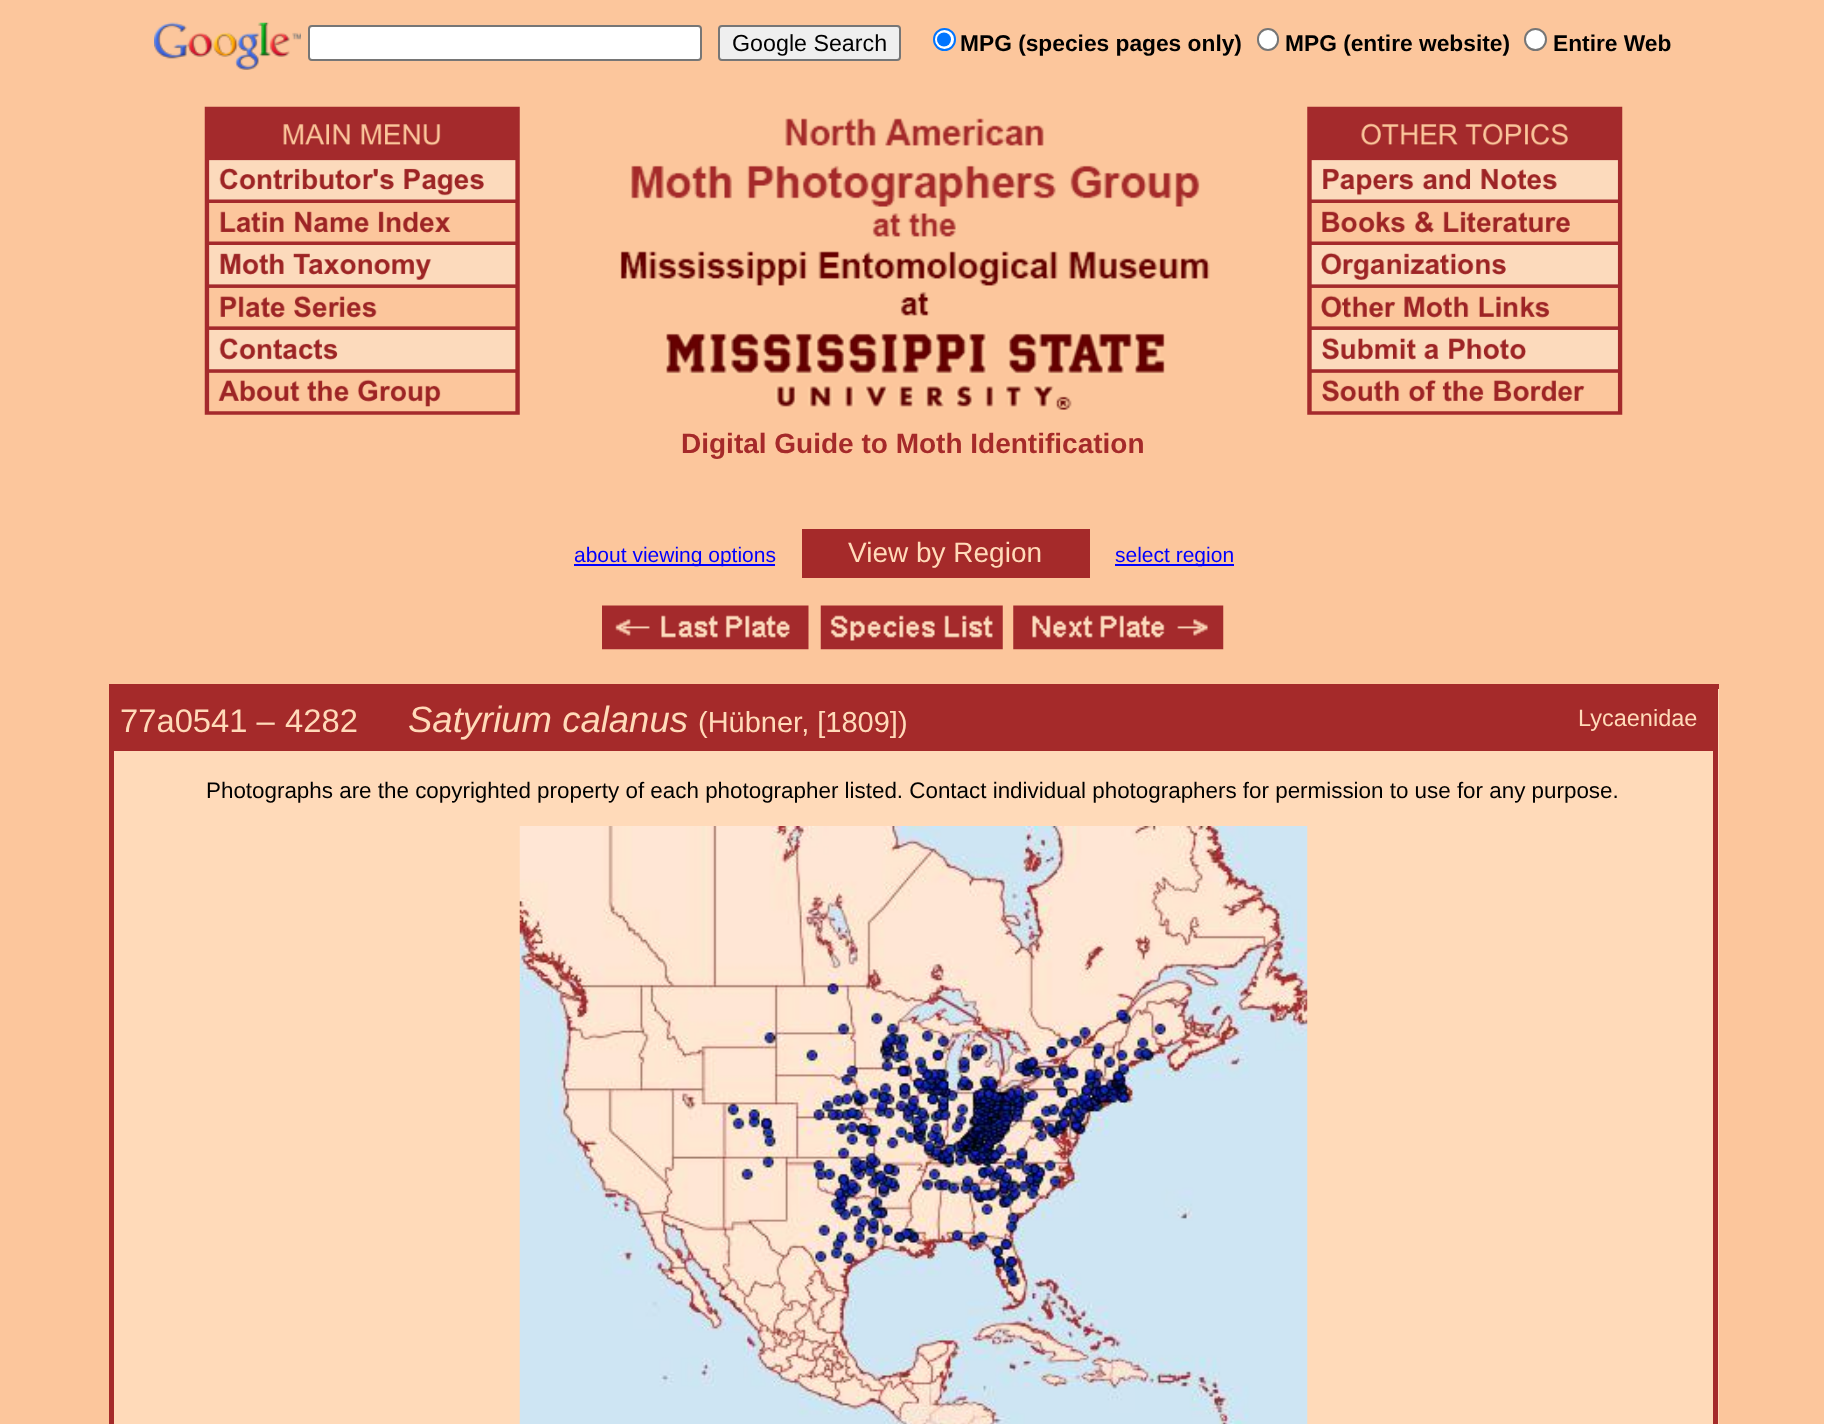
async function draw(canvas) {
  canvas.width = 1824
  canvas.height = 1424
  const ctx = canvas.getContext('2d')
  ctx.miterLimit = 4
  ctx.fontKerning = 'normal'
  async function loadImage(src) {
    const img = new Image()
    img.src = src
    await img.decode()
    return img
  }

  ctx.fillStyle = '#fcc69c'
  ctx.fillRect(0, 0, 1824, 1424)
  ctx.drawImage(await loadImage('image0.png'), 154, 22, 147, 48)
  ctx.fillStyle = '#fff'
  ctx.beginPath()
  ctx.roundRect(309, 26, 392, 34, 3)
  ctx.fill()
  ctx.strokeStyle = '#767676'
  ctx.lineWidth = 2
  ctx.stroke()
  ctx.fillStyle = '#efefef'
  ctx.beginPath()
  ctx.roundRect(719, 26, 181, 34, 3)
  ctx.fill()
  ctx.stroke()
  ctx.font = '23.25px Liberation Sans'
  ctx.fillStyle = '#000'
  ctx.fillText('Google Search', 732, 51)
  ctx.fillStyle = '#fff'
  ctx.beginPath()
  ctx.arc(944.5, 39.5, 10.5, 0, 2 * Math.PI)
  ctx.fill()
  ctx.strokeStyle = '#0075ff'
  ctx.stroke()
  ctx.fillStyle = '#0075ff'
  ctx.beginPath()
  ctx.arc(944, 39.5, 7, 0, 2 * Math.PI)
  ctx.fill()
  ctx.font = 'bold 22.75px Liberation Sans'
  ctx.fillStyle = '#000'
  ctx.fillText('MPG (species pages only)', 960, 51)
  ctx.fillStyle = '#fff'
  ctx.beginPath()
  ctx.roundRect(1258, 29, 20, 21, 10)
  ctx.fill()
  ctx.strokeStyle = '#767676'
  ctx.stroke()
  ctx.fillStyle = '#000'
  ctx.fillText('MPG (entire website)', 1285, 51)
  ctx.fillStyle = '#fff'
  ctx.beginPath()
  ctx.arc(1535.5, 39.5, 10.5, 0, 2 * Math.PI)
  ctx.fill()
  ctx.stroke()
  ctx.fillStyle = '#000'
  ctx.fillText('Entire Web', 1553, 51)
  ctx.drawImage(await loadImage('image1.png'), 204, 106, 316, 309)
  ctx.drawImage(await loadImage('image2.png'), 1307, 106, 316, 309)
  ctx.drawImage(await loadImage('image3.png'), 620, 118, 590, 292)
  ctx.font = 'bold 28px Liberation Sans'
  ctx.fillStyle = '#a52a2a'
  ctx.fillText('Digital Guide to Moth Identification', 681, 453)
  ctx.fillStyle = '#00f'
  ctx.fillRect(574, 564, 201, 2)
  ctx.font = '21px Liberation Sans'
  ctx.fillText('about viewing options', 574, 562)
  ctx.fillStyle = '#a52a2a'
  ctx.fillRect(802, 529, 288, 49)
  ctx.font = '28px Liberation Sans'
  ctx.fillStyle = '#ffdab9'
  ctx.fillText('View by Region', 848, 562)
  ctx.fillStyle = '#00f'
  ctx.fillRect(1115, 564, 119, 2)
  ctx.font = '21px Liberation Sans'
  ctx.fillText('select region', 1115, 562)
  ctx.drawImage(await loadImage('image4.png'), 602, 605, 207, 45)
  ctx.drawImage(await loadImage('image5.png'), 820, 605, 183, 45)
  ctx.drawImage(await loadImage('image6.png'), 1013, 605, 211, 45)
  ctx.fillStyle = '#ffdab9'
  ctx.fillRect(114, 689, 1605, 735)
  ctx.fillStyle = '#a52a2a'
  ctx.fillRect(109, 684, 1610, 5)
  ctx.fillRect(1713, 684, 5, 740)
  ctx.fillRect(109, 684, 5, 740)
  ctx.fillRect(114, 689, 1599, 62)
  ctx.font = '32.75px Liberation Sans'
  ctx.fillStyle = '#ffdab9'
  ctx.fillText('77a0541 –', 120, 732)
  ctx.fillText('4282', 285, 732)
  ctx.font = 'italic 36.5px Liberation Sans'
  ctx.fillText('Satyrium calanus', 408, 732)
  ctx.font = '29px Liberation Sans'
  ctx.fillText('(Hübner, [1809])', 698, 732)
  ctx.font = '23.5px Liberation Sans'
  ctx.fillText('Lycaenidae', 1578, 726)
  ctx.font = '22.4px Liberation Sans'
  ctx.fillStyle = '#000'
  ctx.fillText('Photographs are the copyrighted property of each photographer listed. Contact individual photographers for permission to use for any purpose.', 206, 798)
  ctx.drawImage(await loadImage('image7.png'), 519, 826, 789, 598)
}

draw(document.querySelector('canvas'))
